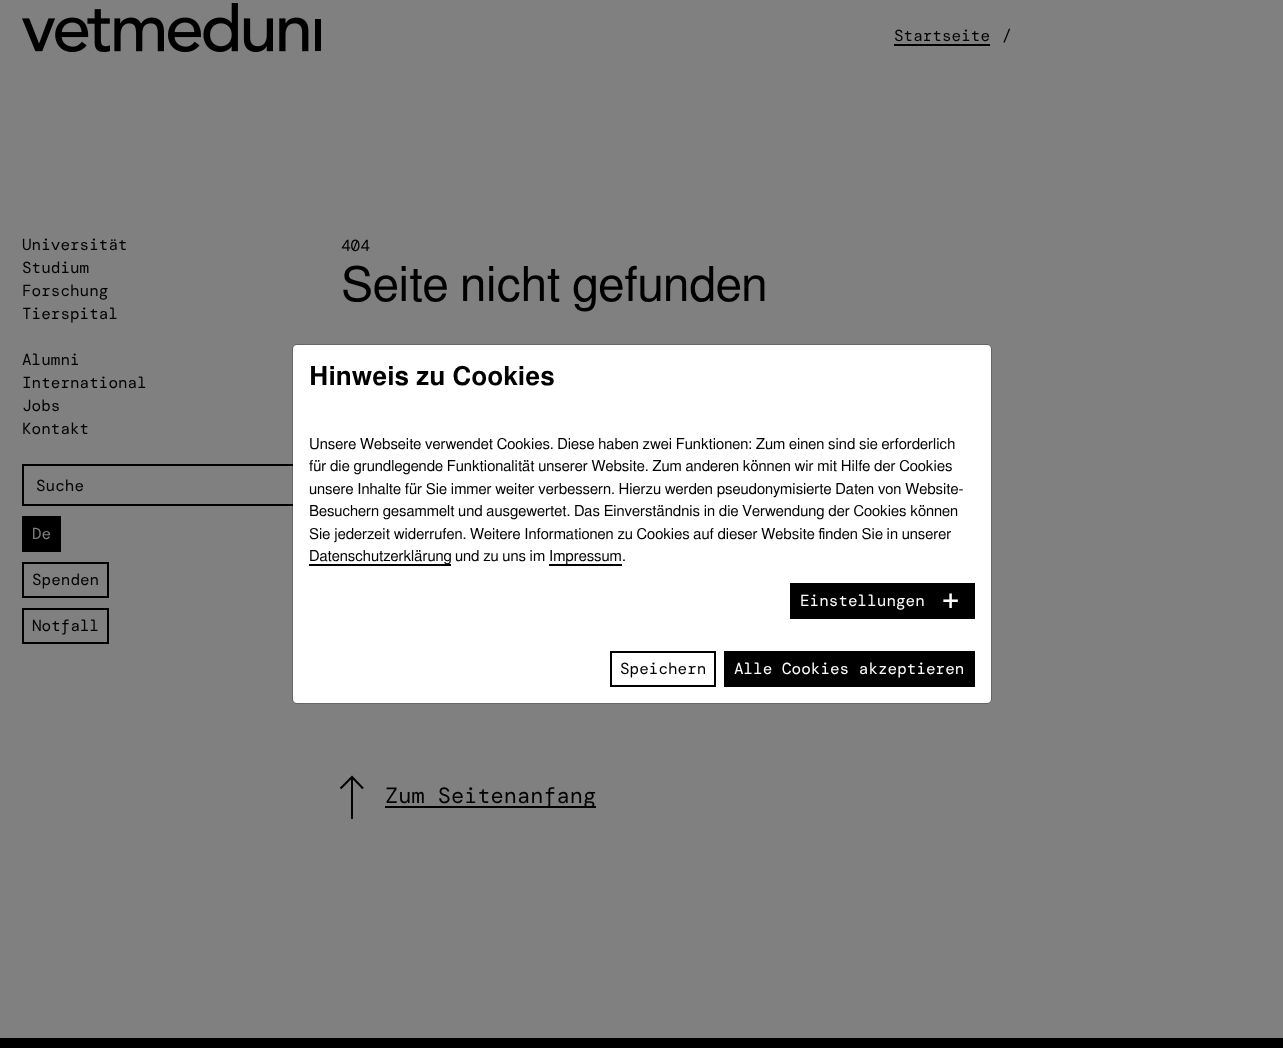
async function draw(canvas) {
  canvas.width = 1283
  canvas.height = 1048
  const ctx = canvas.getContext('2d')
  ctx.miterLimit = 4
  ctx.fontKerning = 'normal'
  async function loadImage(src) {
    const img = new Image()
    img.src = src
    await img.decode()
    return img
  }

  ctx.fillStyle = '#808080'
  ctx.fillRect(0, 0, 1283, 1048)
  ctx.drawImage(await loadImage('image0.png'), 22, 3, 299, 50)
  ctx.font = '16px DM Mono'
  ctx.fillStyle = '#000'
  ctx.fillText('Startseite', 894, 41)
  ctx.fillRect(894, 44, 96, 2)
  ctx.fillText('/', 1002, 41)
  ctx.fillText('404', 341, 251)
  ctx.font = '48px FreeSans'
  ctx.fillText('Seite nicht gefunden', 341, 301)
  ctx.fillRect(385, 806, 211, 2)
  ctx.font = '22px DM Mono'
  ctx.fillText('Zum Seitenanfang', 385, 803)
  ctx.fillRect(351, 777, 2, 42)
  ctx.beginPath()
  ctx.moveTo(340.5, 788.5)
  ctx.lineTo(352, 777)
  ctx.lineTo(363, 788.5)
  ctx.strokeStyle = '#000'
  ctx.lineWidth = 2.1
  ctx.stroke()
  ctx.font = '16px DM Mono'
  ctx.fillText('Universität', 22, 250)
  ctx.fillText('Studium', 22, 273)
  ctx.fillText('Forschung', 22, 296)
  ctx.fillText('Tierspital', 22, 319)
  ctx.fillText('Alumni', 22, 365)
  ctx.fillText('International', 22, 388)
  ctx.fillText('Jobs', 22, 411)
  ctx.fillText('Kontakt', 22, 434)
  ctx.lineWidth = 2
  ctx.strokeRect(23, 465, 287, 40)
  ctx.fillText('Suche', 36, 491)
  ctx.fillRect(22, 516, 39, 36)
  ctx.fillStyle = '#808080'
  ctx.fillText('De', 32, 539)
  ctx.strokeRect(23, 563, 85, 34)
  ctx.fillStyle = '#000'
  ctx.fillText('Spenden', 32, 585)
  ctx.strokeRect(23, 609, 85, 34)
  ctx.fillText('Notfall', 32, 631)
  ctx.fillRect(0, 1038, 1283, 10)
  ctx.fillStyle = '#fff'
  ctx.beginPath()
  ctx.roundRect(293, 345, 698, 358, 4)
  ctx.fill()
  ctx.beginPath()
  ctx.roundRect(292.5, 344.5, 699, 359, 4.5)
  ctx.strokeStyle = '#00000033'
  ctx.lineWidth = 1
  ctx.stroke()
  ctx.font = 'bold 26px FreeSans'
  ctx.fillStyle = '#000'
  ctx.fillText('Hinweis zu Cookies', 309, 385)
  ctx.font = '15px FreeSans'
  ctx.fillText('Unsere Webseite verwendet Cookies. Diese haben zwei Funktionen: Zum einen sind sie erforderlich', 309, 449)
  ctx.fillText('für die grundlegende Funktionalität unserer Website. Zum anderen können wir mit Hilfe der Cookies', 309, 471)
  ctx.fillText('unsere Inhalte für Sie immer weiter verbessern. Hierzu werden pseudonymisierte Daten von Website-', 309, 494)
  ctx.fillText('Besuchern gesammelt und ausgewertet. Das Einverständnis in die Verwendung der Cookies können', 309, 516)
  ctx.fillText('Sie jederzeit widerrufen. Weitere Informationen zu Cookies auf dieser Website finden Sie in unserer', 309, 539)
  ctx.fillRect(309, 564, 142, 2)
  ctx.fillText('Datenschutzerklärung', 309, 561)
  ctx.fillText('und zu uns im', 455, 561)
  ctx.fillRect(549, 564, 73, 2)
  ctx.fillText('Impressum', 549, 561)
  ctx.fillText('.', 622, 561)
  ctx.fillRect(790, 583, 185, 36)
  ctx.font = '16px DM Mono'
  ctx.fillStyle = '#fff'
  ctx.fillText('Einstellungen', 800, 606)
  ctx.font = '32px DM Mono'
  ctx.fillText('+', 941, 612)
  ctx.strokeStyle = '#000'
  ctx.lineWidth = 2
  ctx.strokeRect(611, 652, 104, 34)
  ctx.font = '16px DM Mono'
  ctx.fillStyle = '#000'
  ctx.fillText('Speichern', 620, 674)
  ctx.fillRect(724, 651, 251, 36)
  ctx.fillStyle = '#fff'
  ctx.fillText('Alle Cookies akzeptieren', 734, 674)
}

draw(document.querySelector('canvas'))
